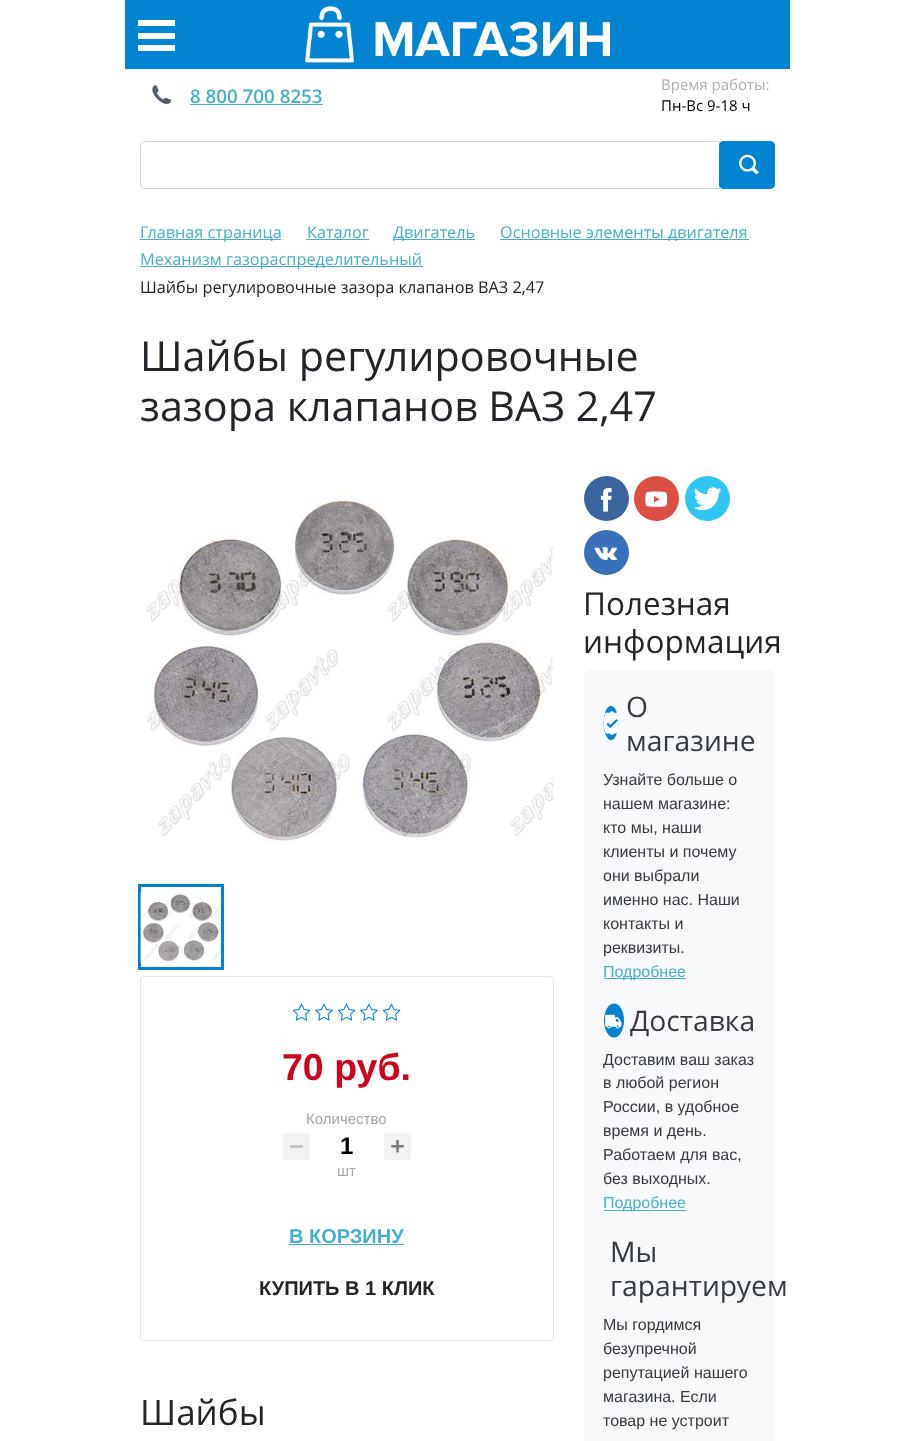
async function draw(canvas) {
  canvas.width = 915
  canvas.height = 1441
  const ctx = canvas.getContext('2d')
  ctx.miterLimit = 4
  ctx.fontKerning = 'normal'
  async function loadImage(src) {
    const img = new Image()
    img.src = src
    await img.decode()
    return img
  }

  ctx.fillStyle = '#fff'
  ctx.fillRect(0, 0, 915, 1441)
  ctx.fillStyle = '#0083d1'
  ctx.fillRect(125, 0, 665, 69)
  ctx.drawImage(await loadImage('image0.png'), 305, 6, 305, 57)
  ctx.fillStyle = '#fff'
  ctx.fillRect(138, 20, 37, 6)
  ctx.fillRect(138, 45, 37, 6)
  ctx.fillRect(138, 33, 37, 6)
  ctx.drawImage(await loadImage('image1.png'), 152, 85, 19, 19)
  ctx.font = '600 18.75px Open Sans'
  ctx.fillStyle = '#44b1c9'
  ctx.fillText('8 800 700 8253', 190, 103)
  ctx.fillRect(190, 104, 133, 1)
  ctx.font = '15px Open Sans'
  ctx.fillStyle = '#adadad'
  ctx.fillText('Время работы:', 661, 90)
  ctx.fillStyle = '#000'
  ctx.fillText('Пн-Вс 9-18 ч', 661, 111)
  ctx.beginPath()
  ctx.roundRect(140.5, 141.5, 579, 47, [4.5, 0, 0, 4.5])
  ctx.strokeStyle = '#ced4da'
  ctx.stroke()
  ctx.fillStyle = '#0083d1'
  ctx.beginPath()
  ctx.roundRect(719, 141, 56, 48, 5)
  ctx.fill()
  ctx.drawImage(await loadImage('image2.png'), 739, 154, 20, 21)
  ctx.beginPath()
  ctx.roundRect(719.5, 141.5, 55, 47, 4.5)
  ctx.strokeStyle = '#0083d1'
  ctx.stroke()
  ctx.fillStyle = '#44b1c9'
  ctx.fillRect(140, 239, 141, 1)
  ctx.font = '16.25px Open Sans'
  ctx.fillText('Главная страница', 140, 238)
  ctx.fillText('Каталог', 307, 238)
  ctx.fillRect(306, 239, 63, 1)
  ctx.fillRect(394, 239, 81, 1)
  ctx.fillText('Двигатель', 393, 238)
  ctx.fillRect(500, 239, 249, 1)
  ctx.fillText('Основные элементы двигателя', 500, 238)
  ctx.fillRect(140, 266, 283, 1)
  ctx.fillText('Механизм газораспределительный', 140, 265)
  ctx.fillStyle = '#212529'
  ctx.fillText('Шайбы регулировочные зазора клапанов ВАЗ 2,47', 140, 293)
  ctx.font = '41.25px Open Sans'
  ctx.fillText('Шайбы регулировочные', 140, 371)
  ctx.fillText('зазора клапанов ВАЗ 2,47', 140, 421)
  ctx.drawImage(await loadImage('image3.png'), 146, 493, 408, 351)
  ctx.lineWidth = 3
  ctx.strokeRect(139.5, 885.5, 83, 83)
  ctx.drawImage(await loadImage('image4.png'), 140, 892, 81, 71)
  ctx.beginPath()
  ctx.roundRect(140.5, 976.5, 413, 364, 3.5)
  ctx.strokeStyle = '#e4e4e4'
  ctx.lineWidth = 1
  ctx.stroke()
  ctx.drawImage(await loadImage('image5.png'), 293, 1003, 18, 18)
  ctx.drawImage(await loadImage('image6.png'), 315, 1003, 18, 18)
  ctx.drawImage(await loadImage('image5.png'), 338, 1003, 18, 18)
  ctx.drawImage(await loadImage('image6.png'), 360, 1003, 18, 18)
  ctx.drawImage(await loadImage('image5.png'), 383, 1003, 18, 18)
  ctx.font = 'bold 37.5px Liberation Sans'
  ctx.fillStyle = '#d0021b'
  ctx.fillText('70 руб.', 282, 1080)
  ctx.font = '15px Liberation Sans'
  ctx.fillStyle = '#a5a5a5'
  ctx.fillText('Количество', 306, 1124)
  ctx.fillStyle = '#f2f2f2'
  ctx.beginPath()
  ctx.roundRect(283, 1133, 27, 27, 2.5)
  ctx.fill()
  ctx.fillStyle = '#c2c5c9'
  ctx.fillRect(290, 1145, 13, 3)
  ctx.font = 'bold 24px Liberation Sans'
  ctx.fillStyle = '#000'
  ctx.fillText('1', 340, 1154)
  ctx.fillStyle = '#f2f2f2'
  ctx.beginPath()
  ctx.roundRect(384, 1133, 27, 27, 2.5)
  ctx.fill()
  ctx.drawImage(await loadImage('image7.png'), 391, 1140, 13, 13)
  ctx.font = '15px Liberation Sans'
  ctx.fillStyle = '#a5a5a5'
  ctx.fillText('шт', 337, 1176)
  ctx.font = 'bold 20px Liberation Sans'
  ctx.fillStyle = '#44b1c9'
  ctx.fillText('В КОРЗИНУ', 289, 1243)
  ctx.fillRect(289, 1244, 115, 1)
  ctx.fillStyle = '#212529'
  ctx.fillText('КУПИТЬ В 1 КЛИК', 259, 1295)
  ctx.font = '35px Open Sans'
  ctx.fillText('Шайбы', 140, 1425)
  ctx.fillStyle = '#38659f'
  ctx.beginPath()
  ctx.arc(606.5, 498.5, 22.5, 0, 2 * Math.PI)
  ctx.fill()
  ctx.drawImage(await loadImage('image8.png'), 600, 488, 12, 24)
  ctx.fillStyle = '#dc4e41'
  ctx.beginPath()
  ctx.arc(656.5, 498.5, 22.5, 0, 2 * Math.PI)
  ctx.fill()
  ctx.drawImage(await loadImage('image9.png'), 645, 491, 23, 16)
  ctx.fillStyle = '#2fc6f6'
  ctx.beginPath()
  ctx.arc(707.5, 498.5, 22.5, 0, 2 * Math.PI)
  ctx.fill()
  ctx.drawImage(await loadImage('image10.png'), 693, 487, 29, 24)
  ctx.fillStyle = '#3871ba'
  ctx.beginPath()
  ctx.arc(606.5, 552.5, 22.5, 0, 2 * Math.PI)
  ctx.fill()
  ctx.drawImage(await loadImage('image11.png'), 594, 547, 23, 13)
  ctx.font = '31.5px Open Sans'
  ctx.fillStyle = '#212529'
  ctx.fillText('Полезная', 583, 615)
  ctx.fillText('информация', 583, 653)
  ctx.fillStyle = '#f8f9fa'
  ctx.beginPath()
  ctx.roundRect(584, 670, 191, 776, 5)
  ctx.fill()
  ctx.fillStyle = '#0083d1'
  ctx.beginPath()
  ctx.ellipse(611, 723, 7.5, 17, 0, 0, 2 * Math.PI)
  ctx.fill()
  ctx.drawImage(await loadImage('image12.png'), 603, 711, 16, 24)
  ctx.font = '28.25px Open Sans'
  ctx.fillStyle = '#343a40'
  ctx.fillText('О', 626, 717)
  ctx.fillText('магазине', 626, 751)
  ctx.font = '16px Liberation Sans'
  ctx.fillText('Узнайте больше о', 603, 785)
  ctx.fillText('нашем магазине:', 603, 809)
  ctx.fillText('кто мы, наши', 603, 833)
  ctx.fillText('клиенты и почему', 603, 857)
  ctx.fillText('они выбрали', 603, 881)
  ctx.fillText('именно нас. Наши', 603, 905)
  ctx.fillText('контакты и', 603, 929)
  ctx.fillText('реквизиты.', 603, 953)
  ctx.fillStyle = '#44b1c9'
  ctx.fillRect(604, 978, 82, 1)
  ctx.fillText('Подробнее', 603, 977)
  ctx.fillStyle = '#0083d1'
  ctx.beginPath()
  ctx.ellipse(614, 1020.5, 10, 17, 0, 0, 2 * Math.PI)
  ctx.fill()
  ctx.drawImage(await loadImage('image13.png'), 605, 1014, 17, 15)
  ctx.font = '28.25px Open Sans'
  ctx.fillStyle = '#343a40'
  ctx.fillText('Доставка', 630, 1031)
  ctx.font = '16px Liberation Sans'
  ctx.fillText('Доставим ваш заказ', 603, 1065)
  ctx.fillText('в любой регион', 603, 1088)
  ctx.fillText('России, в удобное', 603, 1112)
  ctx.fillText('время и день.', 603, 1136)
  ctx.fillText('Работаем для вас,', 603, 1160)
  ctx.fillText('без выходных.', 603, 1184)
  ctx.fillStyle = '#44b1c9'
  ctx.fillRect(604, 1210, 82, 1)
  ctx.fillText('Подробнее', 603, 1208)
  ctx.font = '28.25px Open Sans'
  ctx.fillStyle = '#343a40'
  ctx.fillText('Мы', 610, 1262)
  ctx.fillText('гарантируем', 610, 1296)
  ctx.font = '16px Liberation Sans'
  ctx.fillText('Мы гордимся', 603, 1330)
  ctx.fillText('безупречной', 603, 1354)
  ctx.fillText('репутацией нашего', 603, 1378)
  ctx.fillText('магазина. Если', 603, 1402)
  ctx.fillText('товар не устроит', 603, 1426)
}

draw(document.querySelector('canvas'))
